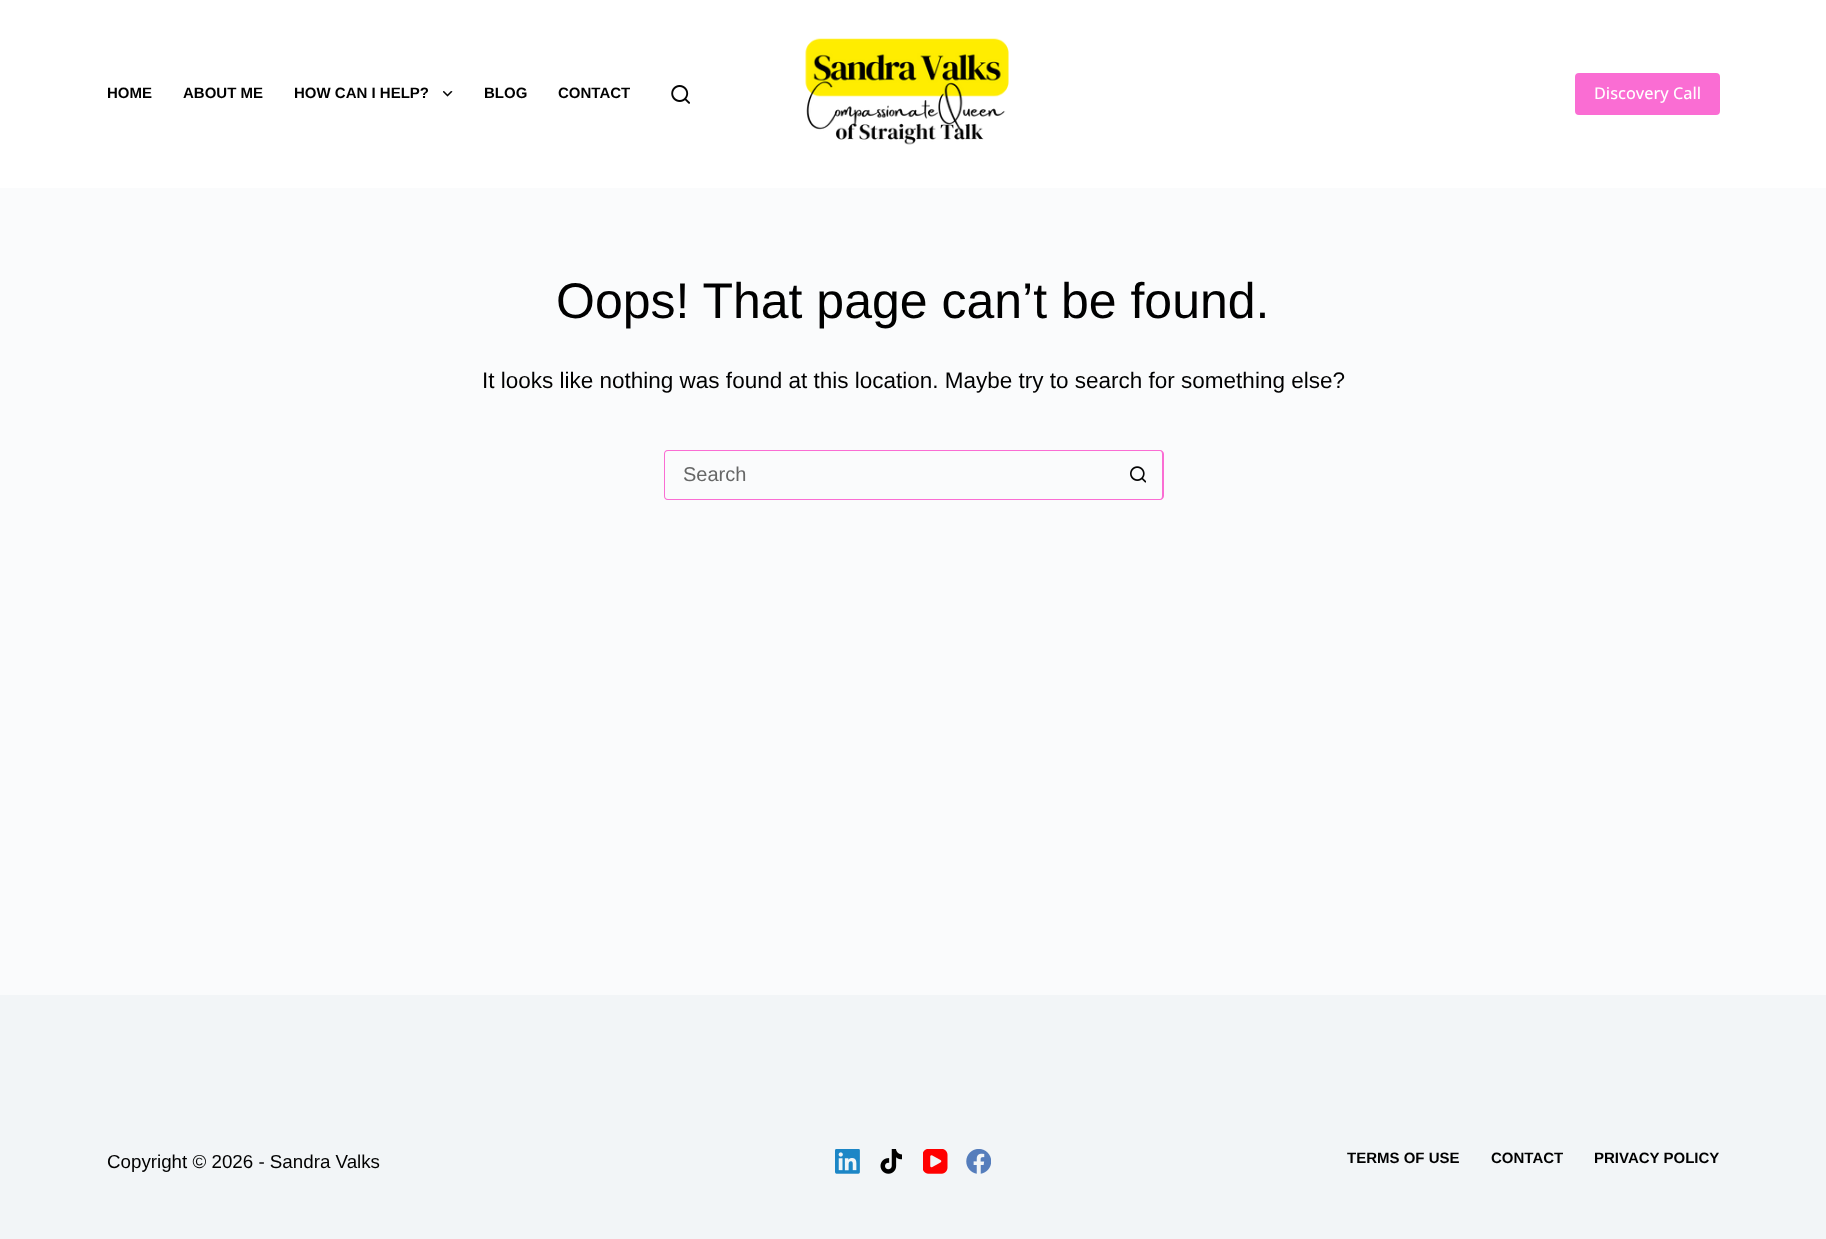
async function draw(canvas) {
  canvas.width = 1826
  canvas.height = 1239
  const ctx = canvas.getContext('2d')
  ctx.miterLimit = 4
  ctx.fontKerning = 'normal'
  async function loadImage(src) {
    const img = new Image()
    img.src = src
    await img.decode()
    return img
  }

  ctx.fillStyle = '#fafbfc'
  ctx.fillRect(0, 0, 1826, 1239)
  ctx.fillStyle = '#fff'
  ctx.fillRect(0, 0, 1826, 188)
  ctx.save()
  ctx.beginPath()
  ctx.rect(108, 0, 538, 188)
  ctx.clip()
  ctx.font = 'bold 15px Liberation Sans'
  ctx.fillStyle = '#000'
  ctx.fillText('HOME', 107, 98)
  ctx.restore()
  ctx.font = 'bold 15px Liberation Sans'
  ctx.fillStyle = '#000'
  ctx.fillText('ABOUT ME', 183, 98)
  ctx.fillText('HOW CAN I HELP?', 294, 98)
  ctx.drawImage(await loadImage('image0.png'), 443, 91, 10, 6)
  ctx.fillText('BLOG', 484, 98)
  ctx.fillText('CONTACT', 558, 98)
  ctx.drawImage(await loadImage('image1.png'), 671, 85, 19, 19)
  ctx.drawImage(await loadImage('image2.png'), 805, 38, 204, 107)
  ctx.fillStyle = '#fa6dd3'
  ctx.beginPath()
  ctx.roundRect(1575, 73, 145, 42, 4)
  ctx.fill()
  ctx.font = '500 16.25px Open Sans'
  ctx.fillStyle = '#fff'
  ctx.fillText('Discovery Call', 1594, 99)
  ctx.font = '50px Liberation Sans'
  ctx.fillStyle = '#000'
  ctx.fillText('Oops! That page can’t be found.', 556, 318)
  ctx.font = '22.5px Liberation Sans'
  ctx.fillText('It looks like nothing was found at this location. Maybe try to search for something else?', 482, 388)
  ctx.fillStyle = '#fa6dd3'
  ctx.beginPath()
  ctx.moveTo(668, 450)
  ctx.lineTo(1114, 450)
  ctx.lineTo(1114, 500)
  ctx.lineTo(668, 500)
  ctx.bezierCurveTo(665, 500, 664, 498, 664, 496)
  ctx.lineTo(664, 454)
  ctx.bezierCurveTo(664, 452, 665, 450, 668, 450)
  ctx.closePath()
  ctx.moveTo(668, 451)
  ctx.lineTo(1114, 451)
  ctx.lineTo(1114, 499)
  ctx.lineTo(668, 499)
  ctx.bezierCurveTo(666, 499, 665, 498, 665, 496)
  ctx.lineTo(665, 454)
  ctx.bezierCurveTo(665, 452, 666, 451, 668, 451)
  ctx.closePath()
  ctx.fill('evenodd')
  ctx.font = '20px Liberation Sans'
  ctx.fillStyle = '#666767'
  ctx.fillText('Search', 683, 481)
  ctx.fillStyle = '#fa6dd3'
  ctx.beginPath()
  ctx.moveTo(1114, 450)
  ctx.lineTo(1160, 450)
  ctx.bezierCurveTo(1162, 450, 1164, 452, 1164, 454)
  ctx.lineTo(1164, 496)
  ctx.bezierCurveTo(1164, 498, 1162, 500, 1160, 500)
  ctx.lineTo(1114, 500)
  ctx.closePath()
  ctx.moveTo(1114, 451)
  ctx.lineTo(1160, 451)
  ctx.bezierCurveTo(1161, 451, 1162, 452, 1162, 454)
  ctx.lineTo(1162, 496)
  ctx.bezierCurveTo(1162, 498, 1161, 499, 1160, 499)
  ctx.lineTo(1114, 499)
  ctx.closePath()
  ctx.fill('evenodd')
  ctx.drawImage(await loadImage('image3.png'), 1130, 466, 16, 17)
  ctx.fillStyle = '#f2f5f7'
  ctx.fillRect(0, 995, 1826, 244)
  ctx.font = '18.75px Liberation Sans'
  ctx.fillStyle = '#000'
  ctx.fillText('Copyright © 2026 - Sandra Valks', 107, 1168)
  ctx.drawImage(await loadImage('image4.png'), 835, 1149, 25, 25)
  ctx.drawImage(await loadImage('image5.png'), 880, 1149, 22, 25)
  ctx.drawImage(await loadImage('image6.png'), 923, 1149, 25, 25)
  ctx.drawImage(await loadImage('image7.png'), 966, 1149, 25, 25)
  ctx.font = 'bold 15px Liberation Sans'
  ctx.fillText('TERMS OF USE', 1347, 1163)
  ctx.fillText('CONTACT', 1491, 1163)
  ctx.fillText('PRIVACY POLICY', 1594, 1163)
}

draw(document.querySelector('canvas'))
